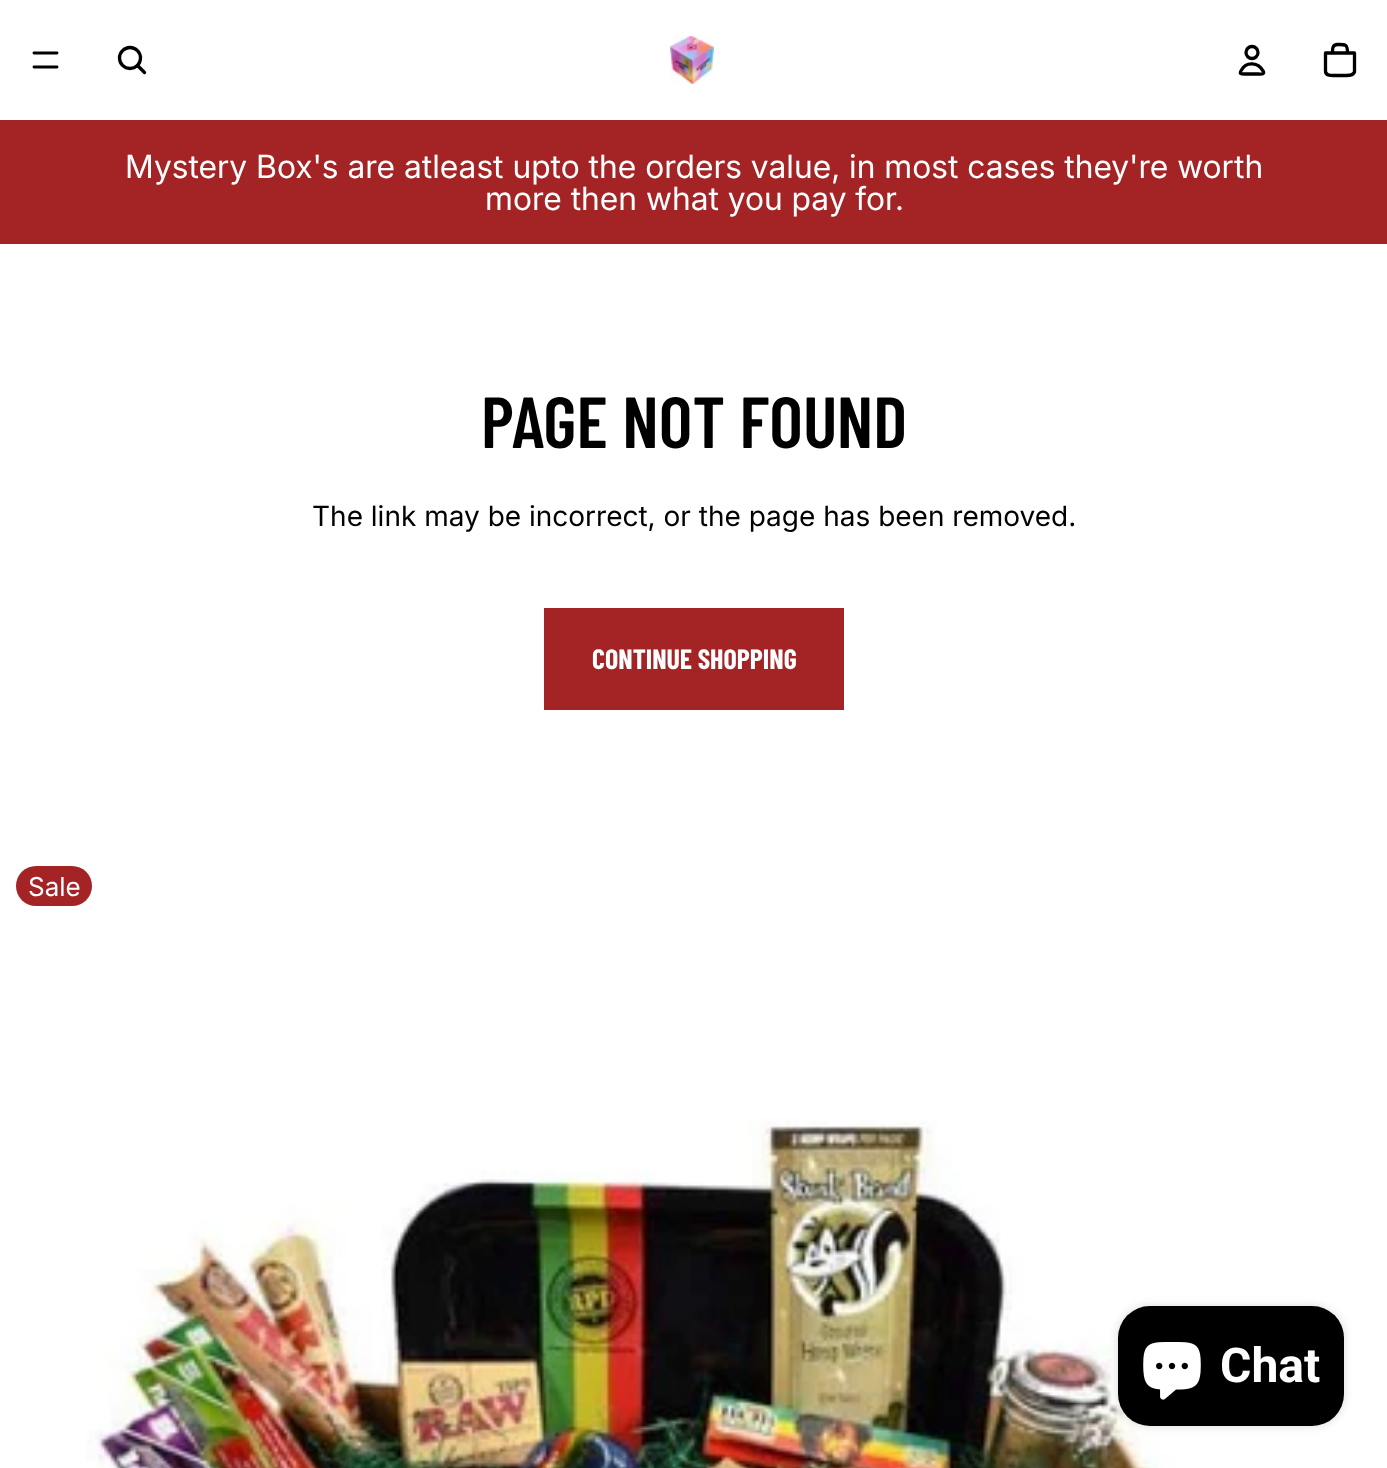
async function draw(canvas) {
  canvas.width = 1387
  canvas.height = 1468
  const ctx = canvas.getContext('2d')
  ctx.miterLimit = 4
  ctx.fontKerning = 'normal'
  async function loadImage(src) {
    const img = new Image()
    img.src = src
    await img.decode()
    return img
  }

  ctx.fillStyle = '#fff'
  ctx.fillRect(0, 0, 1387, 1468)
  ctx.beginPath()
  ctx.moveTo(34, 53)
  ctx.lineTo(57, 53)
  ctx.moveTo(34, 67)
  ctx.lineTo(57, 67)
  ctx.strokeStyle = '#000'
  ctx.lineWidth = 2.9
  ctx.lineCap = 'round'
  ctx.stroke()
  ctx.beginPath()
  ctx.arc(130, 58, 10.5, 0, 2 * Math.PI)
  ctx.lineWidth = 3.3
  ctx.stroke()
  ctx.beginPath()
  ctx.moveTo(137.5, 65.5)
  ctx.lineTo(144.5, 72.5)
  ctx.lineJoin = 'round'
  ctx.stroke()
  ctx.drawImage(await loadImage('image0.png'), 670, 36, 44, 48)
  ctx.beginPath()
  ctx.arc(1252, 52.5, 6, 0, 2 * Math.PI)
  ctx.stroke()
  ctx.beginPath()
  ctx.moveTo(1241.5, 70)
  ctx.bezierCurveTo(1239, 74, 1240.5, 74, 1245, 74)
  ctx.lineTo(1259, 74)
  ctx.bezierCurveTo(1259.5, 74, 1263, 74.5, 1263.5, 73)
  ctx.bezierCurveTo(1264, 72.5, 1263.5, 71.5, 1263, 71)
  ctx.bezierCurveTo(1258.5, 62.5, 1246.5, 61, 1241.5, 70)
  ctx.stroke()
  ctx.beginPath()
  ctx.moveTo(1325.5, 53)
  ctx.lineTo(1354.5, 53)
  ctx.lineTo(1354.5, 72)
  ctx.bezierCurveTo(1353, 75.5, 1349.5, 75.5, 1346.5, 75.5)
  ctx.lineTo(1333.5, 75.5)
  ctx.bezierCurveTo(1330, 75.5, 1325.5, 75.5, 1325.5, 71)
  ctx.closePath()
  ctx.moveTo(1337.5, 44.5)
  ctx.bezierCurveTo(1345.5, 44.5, 1347.5, 44, 1347.5, 53)
  ctx.lineTo(1332.5, 53)
  ctx.bezierCurveTo(1332.5, 49.5, 1332, 44.5, 1337.5, 44.5)
  ctx.stroke()
  ctx.fillStyle = '#a42325'
  ctx.fillRect(0, 120, 1387, 124)
  ctx.font = '32px Inter'
  ctx.fillStyle = '#fff'
  ctx.fillText('Mystery Box\'s are atleast upto the orders value, in most cases they\'re worth', 125, 178)
  ctx.fillText('more then what you pay for.', 485, 210)
  ctx.font = '600 72px Barlow Condensed'
  ctx.fillStyle = '#000'
  ctx.fillText('PAGE NOT FOUND', 481, 448)
  ctx.font = '28px "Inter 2"'
  ctx.fillText('The link may be incorrect, or the page has been removed.', 312, 526)
  ctx.fillStyle = '#a42325'
  ctx.fillRect(544, 608, 300, 102)
  ctx.font = 'bold 28px Barlow Condensed'
  ctx.fillStyle = '#fff'
  ctx.fillText('CONTINUE SHOPPING', 592, 669)
  ctx.drawImage(await loadImage('image1.png'), 0, 850, 1387, 618)
  ctx.fillStyle = '#a42325'
  ctx.beginPath()
  ctx.roundRect(16, 866, 76, 40, 20)
  ctx.fill()
  ctx.font = '26px "Inter 2"'
  ctx.fillStyle = '#fff'
  ctx.fillText('Sale', 28, 896)
  ctx.fillStyle = '#00000026'
  ctx.filter = 'blur(5px)'
  ctx.beginPath()
  ctx.roundRect(1118, 1306, 226, 120, 32)
  ctx.fill()
  ctx.filter = 'none'
  ctx.fillStyle = '#000'
  ctx.beginPath()
  ctx.roundRect(1118, 1306, 226, 120, 32)
  ctx.fill()
  ctx.drawImage(await loadImage('image2.png'), 1143, 1342, 58, 58)
  ctx.font = 'bold 48px Roboto'
  ctx.fillStyle = '#fff'
  ctx.fillText('Chat', 1220, 1382)
}

draw(document.querySelector('canvas'))
